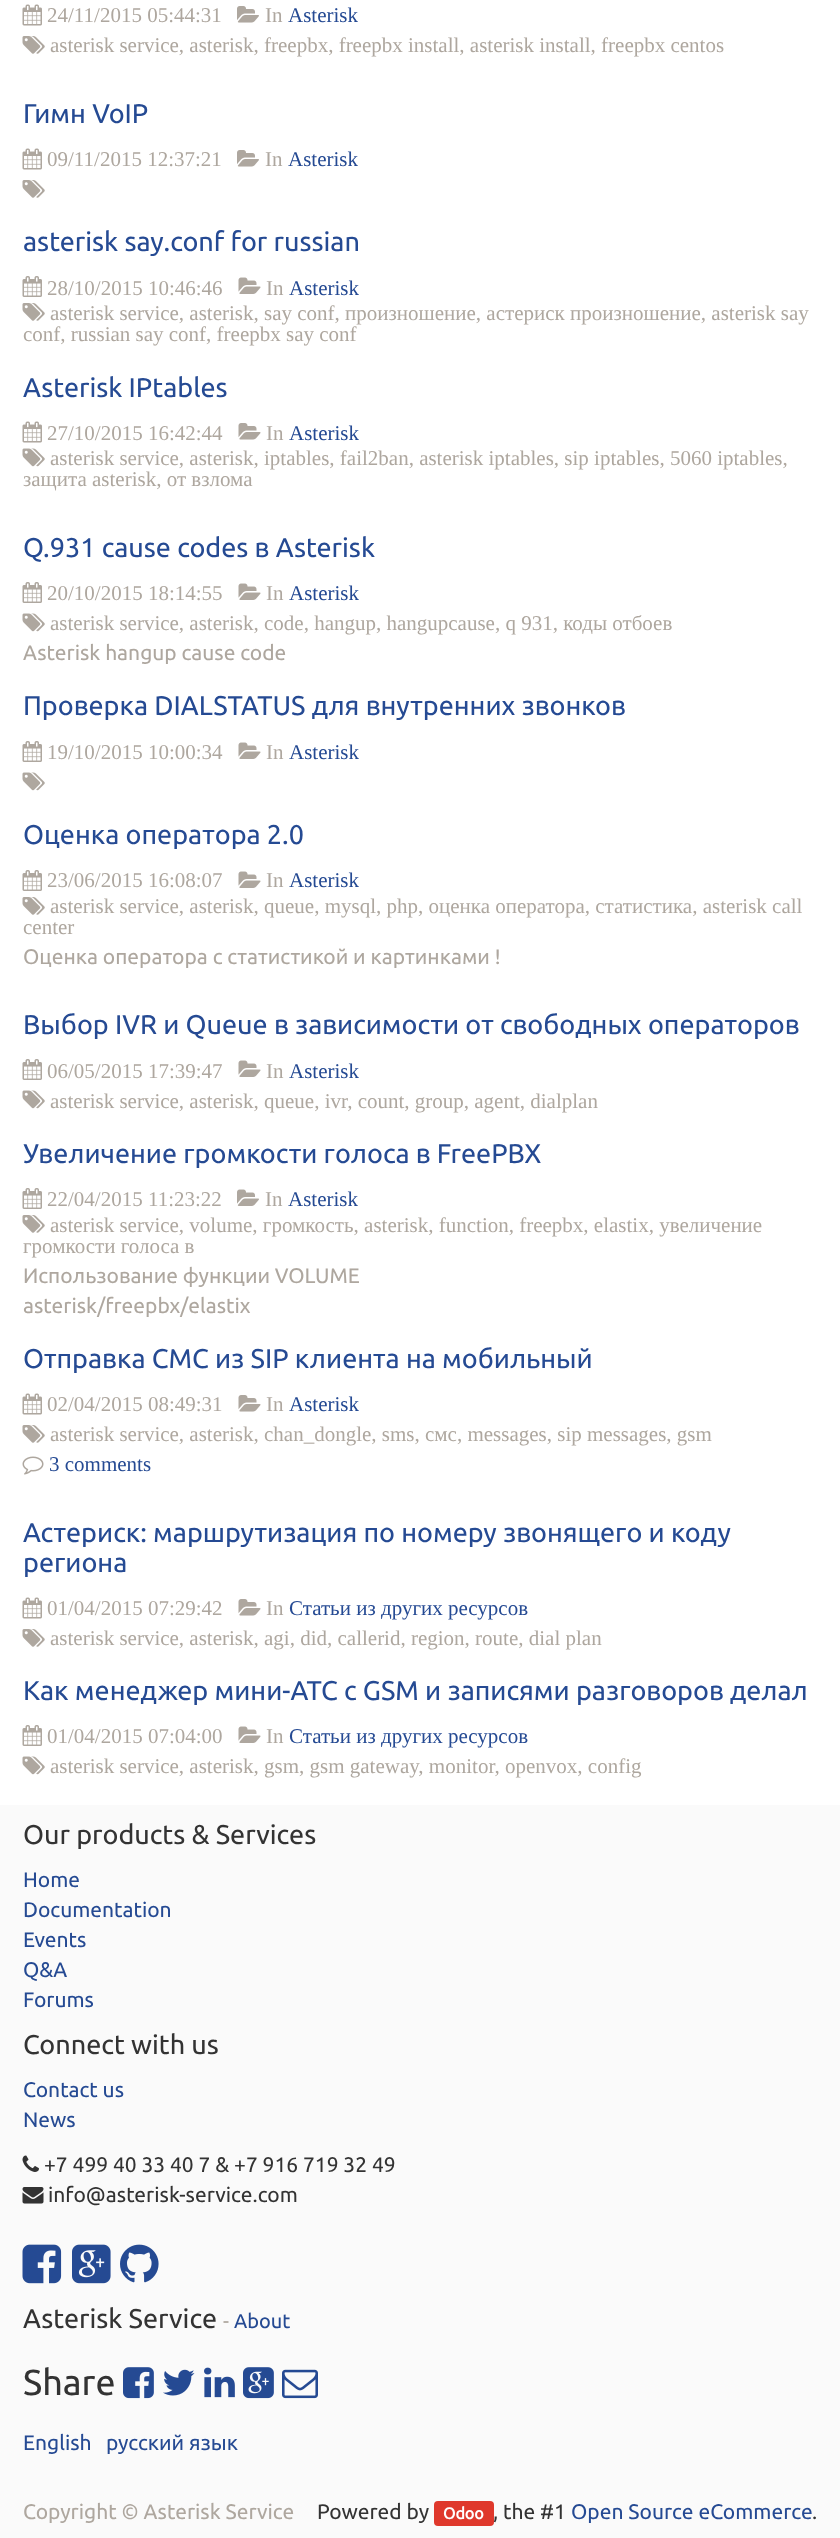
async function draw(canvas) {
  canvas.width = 840
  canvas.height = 2538
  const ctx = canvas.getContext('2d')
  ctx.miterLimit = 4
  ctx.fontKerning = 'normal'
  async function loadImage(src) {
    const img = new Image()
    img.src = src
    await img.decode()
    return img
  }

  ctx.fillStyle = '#fff'
  ctx.fillRect(0, 0, 840, 2538)
  ctx.drawImage(await loadImage('image0.png'), 22, 4, 20, 22)
  ctx.font = '21px Liberation Serif'
  ctx.fillStyle = '#aea79f'
  ctx.fillText('24/11/2015 05:44:31', 47, 22)
  ctx.drawImage(await loadImage('image1.png'), 237, 6, 22, 17)
  ctx.fillText('In', 265, 22)
  ctx.fillStyle = '#254a93'
  ctx.fillText('Asterisk', 288, 22)
  ctx.drawImage(await loadImage('image2.png'), 22, 36, 23, 18)
  ctx.fillStyle = '#aea79f'
  ctx.fillText('asterisk service, asterisk, freepbx, freepbx install, asterisk install, freepbx centos', 50, 52)
  ctx.font = '27px Ubuntu'
  ctx.fillStyle = '#254a93'
  ctx.fillText('Гимн VoIP', 23, 123)
  ctx.drawImage(await loadImage('image0.png'), 22, 148, 20, 22)
  ctx.font = '21px Liberation Serif'
  ctx.fillStyle = '#aea79f'
  ctx.fillText('09/11/2015 12:37:21', 47, 166)
  ctx.drawImage(await loadImage('image3.png'), 237, 150, 22, 17)
  ctx.fillText('In', 265, 166)
  ctx.fillStyle = '#254a93'
  ctx.fillText('Asterisk', 288, 166)
  ctx.drawImage(await loadImage('image2.png'), 22, 180, 23, 18)
  ctx.font = '27px Ubuntu'
  ctx.fillText('asterisk say.conf for russian', 23, 251)
  ctx.drawImage(await loadImage('image4.png'), 22, 276, 20, 21)
  ctx.font = '21px Liberation Serif'
  ctx.fillStyle = '#aea79f'
  ctx.fillText('28/10/2015 10:46:46', 47, 295)
  ctx.drawImage(await loadImage('image5.png'), 238, 277, 23, 17)
  ctx.fillText('In', 266, 295)
  ctx.fillStyle = '#254a93'
  ctx.fillText('Asterisk', 289, 295)
  ctx.drawImage(await loadImage('image2.png'), 22, 303, 23, 18)
  ctx.fillStyle = '#aea79f'
  ctx.fillText('asterisk service, asterisk, say conf, произношение, астериск произношение, asterisk say', 50, 320)
  ctx.fillText('conf, russian say conf, freepbx say conf', 23, 341)
  ctx.font = '27px Ubuntu'
  ctx.fillStyle = '#254a93'
  ctx.fillText('Asterisk IPtables', 23, 397)
  ctx.drawImage(await loadImage('image0.png'), 22, 421, 20, 22)
  ctx.font = '21px Liberation Serif'
  ctx.fillStyle = '#aea79f'
  ctx.fillText('27/10/2015 16:42:44', 47, 440)
  ctx.drawImage(await loadImage('image6.png'), 238, 423, 23, 17)
  ctx.fillText('In', 266, 440)
  ctx.fillStyle = '#254a93'
  ctx.fillText('Asterisk', 289, 440)
  ctx.drawImage(await loadImage('image7.png'), 22, 448, 23, 19)
  ctx.fillStyle = '#aea79f'
  ctx.fillText('asterisk service, asterisk, iptables, fail2ban, asterisk iptables, sip iptables, 5060 iptables,', 50, 465)
  ctx.fillText('защита asterisk, от взлома', 23, 486)
  ctx.font = '27px Ubuntu'
  ctx.fillStyle = '#254a93'
  ctx.fillText('Q.931 cause codes в Asterisk', 23, 557)
  ctx.drawImage(await loadImage('image4.png'), 22, 582, 20, 21)
  ctx.font = '21px Liberation Serif'
  ctx.fillStyle = '#aea79f'
  ctx.fillText('20/10/2015 18:14:55', 47, 600)
  ctx.drawImage(await loadImage('image5.png'), 238, 583, 23, 17)
  ctx.fillText('In', 266, 600)
  ctx.fillStyle = '#254a93'
  ctx.fillText('Asterisk', 289, 600)
  ctx.drawImage(await loadImage('image7.png'), 22, 613, 23, 19)
  ctx.fillStyle = '#aea79f'
  ctx.fillText('asterisk service, asterisk, code, hangup, hangupcause, q 931, коды отбоев', 50, 630)
  ctx.font = '21px Ubuntu'
  ctx.fillText('Asterisk hangup cause code', 23, 660)
  ctx.font = '27px Ubuntu'
  ctx.fillStyle = '#254a93'
  ctx.fillText('Проверка DIALSTATUS для внутренних звонков', 23, 715)
  ctx.drawImage(await loadImage('image4.png'), 22, 741, 20, 21)
  ctx.font = '21px Liberation Serif'
  ctx.fillStyle = '#aea79f'
  ctx.fillText('19/10/2015 10:00:34', 47, 759)
  ctx.drawImage(await loadImage('image5.png'), 238, 742, 23, 17)
  ctx.fillText('In', 266, 759)
  ctx.fillStyle = '#254a93'
  ctx.fillText('Asterisk', 289, 759)
  ctx.drawImage(await loadImage('image7.png'), 22, 772, 23, 19)
  ctx.font = '27px Ubuntu'
  ctx.fillText('Оценка оператора 2.0', 23, 844)
  ctx.drawImage(await loadImage('image4.png'), 22, 870, 20, 21)
  ctx.font = '21px Liberation Serif'
  ctx.fillStyle = '#aea79f'
  ctx.fillText('23/06/2015 16:08:07', 47, 887)
  ctx.drawImage(await loadImage('image5.png'), 238, 871, 23, 17)
  ctx.fillText('In', 266, 887)
  ctx.fillStyle = '#254a93'
  ctx.fillText('Asterisk', 289, 887)
  ctx.drawImage(await loadImage('image2.png'), 22, 897, 23, 18)
  ctx.fillStyle = '#aea79f'
  ctx.fillText('asterisk service, asterisk, queue, mysql, php, оценка оператора, статистика, asterisk call', 50, 913)
  ctx.fillText('center', 23, 934)
  ctx.font = '21px Ubuntu'
  ctx.fillText('Оценка оператора с статистикой и картинками !', 23, 964)
  ctx.font = '27px Ubuntu'
  ctx.fillStyle = '#254a93'
  ctx.fillText('Выбор IVR и Queue в зависимости от свободных операторов', 23, 1034)
  ctx.drawImage(await loadImage('image4.png'), 22, 1059, 20, 21)
  ctx.font = '21px Liberation Serif'
  ctx.fillStyle = '#aea79f'
  ctx.fillText('06/05/2015 17:39:47', 47, 1078)
  ctx.drawImage(await loadImage('image5.png'), 238, 1060, 23, 17)
  ctx.fillText('In', 266, 1078)
  ctx.fillStyle = '#254a93'
  ctx.fillText('Asterisk', 289, 1078)
  ctx.drawImage(await loadImage('image7.png'), 22, 1090, 23, 19)
  ctx.fillStyle = '#aea79f'
  ctx.fillText('asterisk service, asterisk, queue, ivr, count, group, agent, dialplan', 50, 1108)
  ctx.font = '27px Ubuntu'
  ctx.fillStyle = '#254a93'
  ctx.fillText('Увеличение громкости голоса в FreePBX', 23, 1163)
  ctx.drawImage(await loadImage('image4.png'), 22, 1188, 20, 21)
  ctx.font = '21px Liberation Serif'
  ctx.fillStyle = '#aea79f'
  ctx.fillText('22/04/2015 11:23:22', 47, 1206)
  ctx.drawImage(await loadImage('image8.png'), 237, 1189, 22, 17)
  ctx.fillText('In', 265, 1206)
  ctx.fillStyle = '#254a93'
  ctx.fillText('Asterisk', 288, 1206)
  ctx.drawImage(await loadImage('image2.png'), 22, 1215, 23, 18)
  ctx.fillStyle = '#aea79f'
  ctx.fillText('asterisk service, volume, громкость, asterisk, function, freepbx, elastix, увеличение', 50, 1232)
  ctx.fillText('громкости голоса в', 23, 1253)
  ctx.font = '21px Ubuntu'
  ctx.fillText('Использование функции VOLUME', 23, 1283)
  ctx.fillText('asterisk/freepbx/elastix', 23, 1313)
  ctx.font = '27px Ubuntu'
  ctx.fillStyle = '#254a93'
  ctx.fillText('Отправка СМС из SIP клиента на мобильный', 23, 1368)
  ctx.drawImage(await loadImage('image0.png'), 22, 1393, 20, 22)
  ctx.font = '21px Liberation Serif'
  ctx.fillStyle = '#aea79f'
  ctx.fillText('02/04/2015 08:49:31', 47, 1411)
  ctx.drawImage(await loadImage('image6.png'), 238, 1395, 23, 17)
  ctx.fillText('In', 266, 1411)
  ctx.fillStyle = '#254a93'
  ctx.fillText('Asterisk', 289, 1411)
  ctx.drawImage(await loadImage('image2.png'), 22, 1425, 23, 18)
  ctx.fillStyle = '#aea79f'
  ctx.fillText('asterisk service, asterisk, chan_dongle, sms, смс, messages, sip messages, gsm', 50, 1441)
  ctx.drawImage(await loadImage('image9.png'), 22, 1456, 22, 19)
  ctx.fillStyle = '#254a93'
  ctx.fillText('3 comments', 49, 1471)
  ctx.font = '27px Ubuntu'
  ctx.fillText('Астериск: маршрутизация по номеру звонящего и коду', 23, 1542)
  ctx.fillText('региона', 23, 1572)
  ctx.drawImage(await loadImage('image0.png'), 22, 1597, 20, 22)
  ctx.font = '21px Liberation Serif'
  ctx.fillStyle = '#aea79f'
  ctx.fillText('01/04/2015 07:29:42', 47, 1615)
  ctx.drawImage(await loadImage('image6.png'), 238, 1599, 23, 17)
  ctx.fillText('In', 266, 1615)
  ctx.fillStyle = '#254a93'
  ctx.fillText('Статьи из других ресурсов', 289, 1615)
  ctx.drawImage(await loadImage('image2.png'), 22, 1629, 23, 18)
  ctx.fillStyle = '#aea79f'
  ctx.fillText('asterisk service, asterisk, agi, did, callerid, region, route, dial plan', 50, 1645)
  ctx.font = '27px Ubuntu'
  ctx.fillStyle = '#254a93'
  ctx.fillText('Как менеджер мини-АТС с GSM и записями разговоров делал', 23, 1700)
  ctx.drawImage(await loadImage('image4.png'), 22, 1725, 20, 21)
  ctx.font = '21px Liberation Serif'
  ctx.fillStyle = '#aea79f'
  ctx.fillText('01/04/2015 07:04:00', 47, 1743)
  ctx.drawImage(await loadImage('image5.png'), 238, 1726, 23, 17)
  ctx.fillText('In', 266, 1743)
  ctx.fillStyle = '#254a93'
  ctx.fillText('Статьи из других ресурсов', 289, 1743)
  ctx.drawImage(await loadImage('image7.png'), 22, 1756, 23, 19)
  ctx.fillStyle = '#aea79f'
  ctx.fillText('asterisk service, asterisk, gsm, gsm gateway, monitor, openvox, config', 50, 1773)
  ctx.fillStyle = '#fafafa'
  ctx.fillRect(0, 1805, 840, 733)
  ctx.font = '27px Ubuntu'
  ctx.fillStyle = '#333'
  ctx.fillText('Our products & Services', 23, 1844)
  ctx.font = '21px Ubuntu'
  ctx.fillStyle = '#254a93'
  ctx.fillText('Home', 23, 1887)
  ctx.fillText('Documentation', 23, 1917)
  ctx.fillText('Events', 23, 1947)
  ctx.fillText('Q&A', 23, 1977)
  ctx.fillText('Forums', 23, 2007)
  ctx.font = '27px Ubuntu'
  ctx.fillStyle = '#333'
  ctx.fillText('Connect with us', 23, 2054)
  ctx.font = '21px Ubuntu'
  ctx.fillStyle = '#254a93'
  ctx.fillText('Contact us', 23, 2097)
  ctx.fillText('News', 23, 2127)
  ctx.drawImage(await loadImage('image10.png'), 22, 2155, 17, 17)
  ctx.fillStyle = '#333'
  ctx.fillText('+7 499 40 33 40 7 & +7 916 719 32 49', 44, 2172)
  ctx.drawImage(await loadImage('image11.png'), 22, 2187, 22, 17)
  ctx.fillText('info@asterisk-service.com', 48, 2202)
  ctx.drawImage(await loadImage('image12.png'), 22, 2244, 40, 40)
  ctx.drawImage(await loadImage('image13.png'), 72, 2244, 39, 40)
  ctx.drawImage(await loadImage('image14.png'), 120, 2244, 39, 39)
  ctx.font = '27px Ubuntu'
  ctx.fillText('Asterisk Service', 23, 2328)
  ctx.font = '20px Ubuntu'
  ctx.fillStyle = '#aea79f'
  ctx.fillText('-', 223, 2328)
  ctx.fillStyle = '#254a93'
  ctx.fillText('About', 234, 2328)
  ctx.font = '36px Ubuntu'
  ctx.fillStyle = '#333'
  ctx.fillText('Share', 23, 2395)
  ctx.drawImage(await loadImage('image15.png'), 123, 2367, 31, 32)
  ctx.drawImage(await loadImage('image16.png'), 163, 2369, 32, 27)
  ctx.drawImage(await loadImage('image17.png'), 204, 2367, 31, 31)
  ctx.drawImage(await loadImage('image18.png'), 243, 2367, 31, 32)
  ctx.drawImage(await loadImage('image19.png'), 282, 2369, 36, 30)
  ctx.font = '21px Ubuntu'
  ctx.fillStyle = '#254a93'
  ctx.fillText('English', 23, 2450)
  ctx.fillText('русский язык', 106, 2450)
  ctx.fillStyle = '#aea79f'
  ctx.fillText('Copyright © Asterisk Service', 23, 2519)
  ctx.fillStyle = '#333'
  ctx.fillText('Powered by', 317, 2519)
  ctx.fillStyle = '#df382c'
  ctx.beginPath()
  ctx.roundRect(434, 2501, 60, 25, 4)
  ctx.fill()
  ctx.font = 'bold 16px Ubuntu'
  ctx.fillStyle = '#fff'
  ctx.fillText('Odoo', 443, 2519)
  ctx.font = '21px Ubuntu'
  ctx.fillStyle = '#333'
  ctx.fillText(', the #1', 493, 2519)
  ctx.fillStyle = '#254a93'
  ctx.fillText('Open Source eCommerce', 571, 2519)
  ctx.fillStyle = '#333'
  ctx.fillText('.', 812, 2519)
}

draw(document.querySelector('canvas'))
